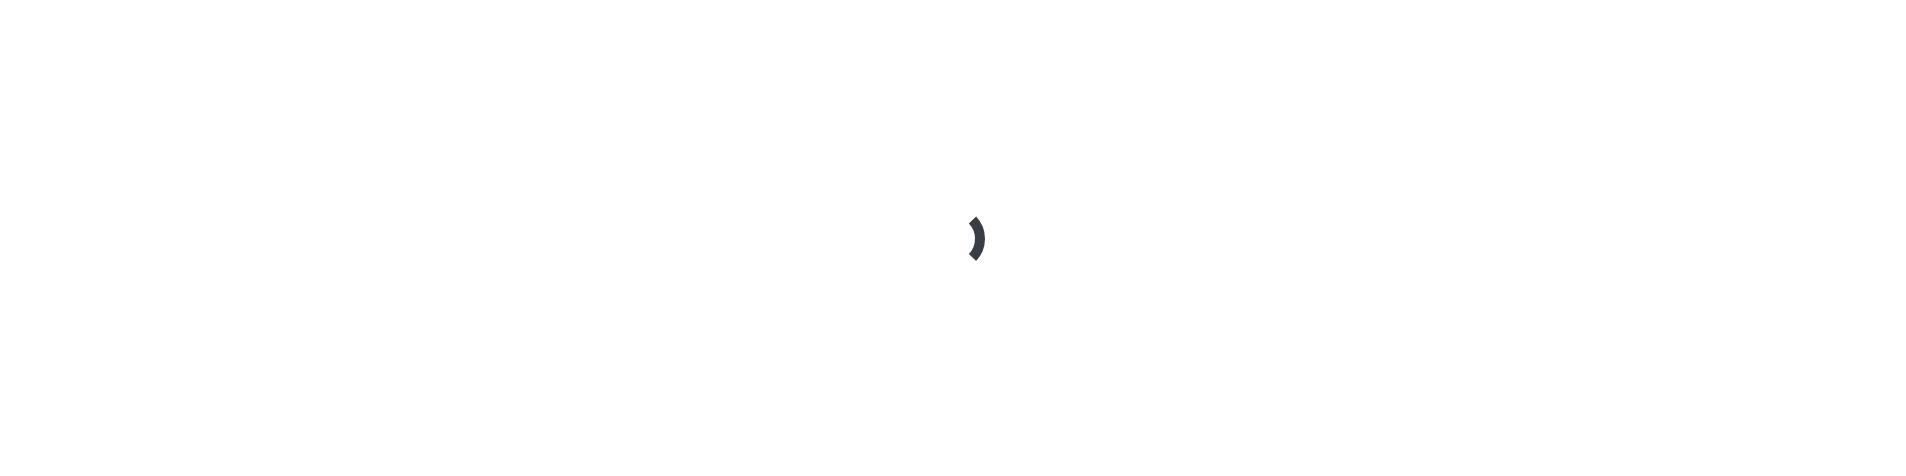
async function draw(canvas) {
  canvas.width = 1906
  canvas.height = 476
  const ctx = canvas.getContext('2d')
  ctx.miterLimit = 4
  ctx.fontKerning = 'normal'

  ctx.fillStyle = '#fff'
  ctx.fillRect(0, 0, 1906, 476)
  ctx.beginPath()
  ctx.moveTo(972.5, 220)
  ctx.bezierCurveTo(982.5, 230.5, 982.5, 247, 972.5, 257.5)
  ctx.moveTo(972.5, 220)
  ctx.bezierCurveTo(982.5, 230.5, 982.5, 247, 972.5, 257.5)
  ctx.moveTo(972.5, 220)
  ctx.bezierCurveTo(982.5, 230.5, 982.5, 247, 972.5, 257.5)
  ctx.strokeStyle = '#393e46'
  ctx.lineWidth = 10
  ctx.stroke()
}

draw(document.querySelector('canvas'))
